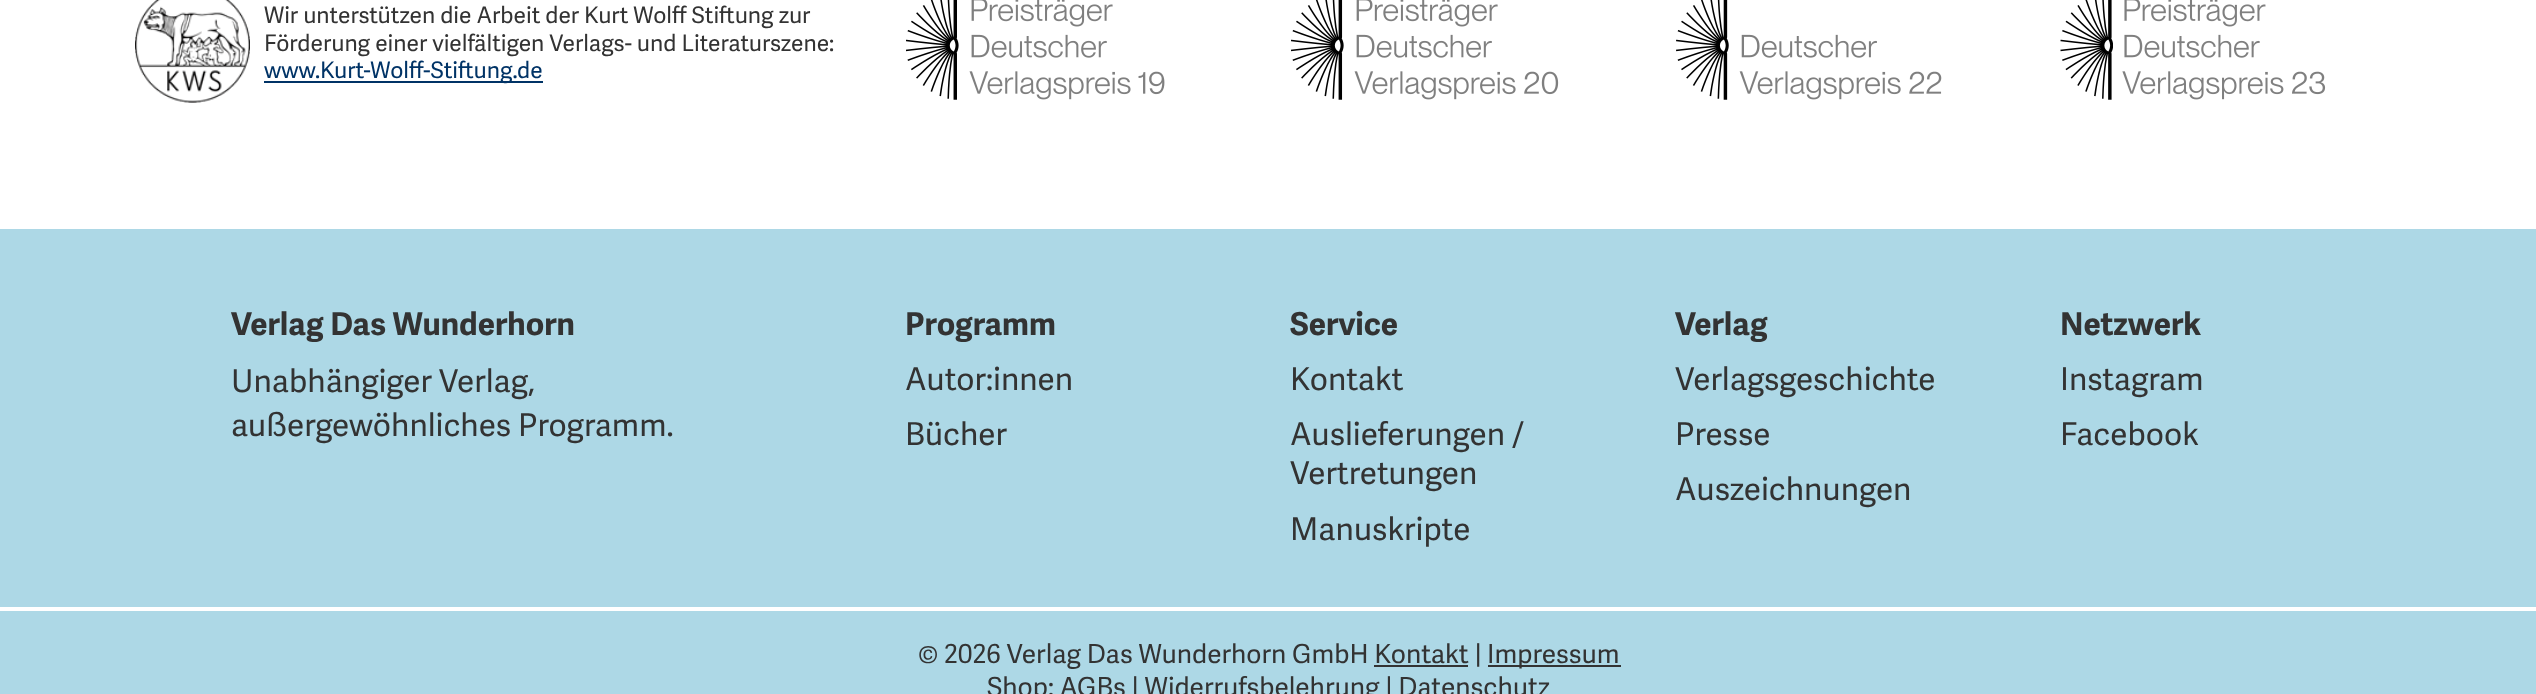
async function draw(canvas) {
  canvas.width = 2536
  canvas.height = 694
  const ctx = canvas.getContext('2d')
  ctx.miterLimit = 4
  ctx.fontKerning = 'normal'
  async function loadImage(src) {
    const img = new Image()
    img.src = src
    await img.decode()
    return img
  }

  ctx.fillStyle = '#fff'
  ctx.fillRect(0, 0, 2536, 694)
  ctx.drawImage(await loadImage('image0.png'), 135, 0, 115, 103)
  ctx.font = '22.75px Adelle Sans'
  ctx.fillStyle = '#333'
  ctx.fillText('Wir unterstützen die Arbeit der Kurt Wolff Stiftung zur', 264, 23)
  ctx.fillText('Förderung einer vielfältigen Verlags- und Literaturszene:', 264, 51)
  ctx.fillStyle = '#036'
  ctx.fillRect(264, 81, 279, 2)
  ctx.fillText('www.Kurt-Wolff-Stiftung.de', 264, 78)
  ctx.drawImage(await loadImage('image1.png'), 906, 0, 259, 100)
  ctx.drawImage(await loadImage('image2.png'), 1291, 0, 268, 100)
  ctx.drawImage(await loadImage('image3.png'), 1676, 0, 266, 100)
  ctx.drawImage(await loadImage('image4.png'), 2060, 0, 266, 100)
  ctx.fillStyle = '#add8e6'
  ctx.fillRect(0, 229, 2536, 465)
  ctx.font = 'bold 31.5px Adelle Sans'
  ctx.fillStyle = '#333'
  ctx.fillText('Verlag Das Wunderhorn', 231, 335)
  ctx.font = '31.5px Adelle Sans'
  ctx.fillText('Unabhängiger Verlag,', 231, 392)
  ctx.fillText('außergewöhnliches Programm.', 231, 436)
  ctx.font = 'bold 31.5px Adelle Sans'
  ctx.fillText('Programm', 905, 335)
  ctx.font = '31.5px Adelle Sans'
  ctx.fillText('Autor:innen', 905, 390)
  ctx.fillText('Bücher', 905, 445)
  ctx.font = 'bold 31.5px Adelle Sans'
  ctx.fillText('Service', 1290, 335)
  ctx.font = '31.5px Adelle Sans'
  ctx.fillText('Kontakt', 1290, 390)
  ctx.fillText('Auslieferungen /', 1290, 445)
  ctx.fillText('Vertretungen', 1290, 484)
  ctx.fillText('Manuskripte', 1290, 540)
  ctx.font = 'bold 31.5px Adelle Sans'
  ctx.fillText('Verlag', 1675, 335)
  ctx.font = '31.5px Adelle Sans'
  ctx.fillText('Verlagsgeschichte', 1675, 390)
  ctx.fillText('Presse', 1675, 445)
  ctx.fillText('Auszeichnungen', 1675, 500)
  ctx.font = 'bold 31.5px Adelle Sans'
  ctx.fillText('Netzwerk', 2060, 335)
  ctx.font = '31.5px Adelle Sans'
  ctx.fillText('Instagram', 2060, 390)
  ctx.fillText('Facebook', 2060, 445)
  ctx.fillStyle = '#fff'
  ctx.fillRect(0, 607, 2536, 4)
  ctx.font = '26.25px Adelle Sans'
  ctx.fillStyle = '#333'
  ctx.fillText('© 2026 Verlag Das Wunderhorn GmbH Kontakt |', 918, 663)
  ctx.fillRect(1488, 665, 133, 2)
  ctx.fillText('Impressum', 1487, 663)
  ctx.fillRect(1374, 665, 94, 2)
  ctx.fillText('Shop: AGBs | Widerrufsbelehrung | Datenschutz', 987, 696)
}

draw(document.querySelector('canvas'))
